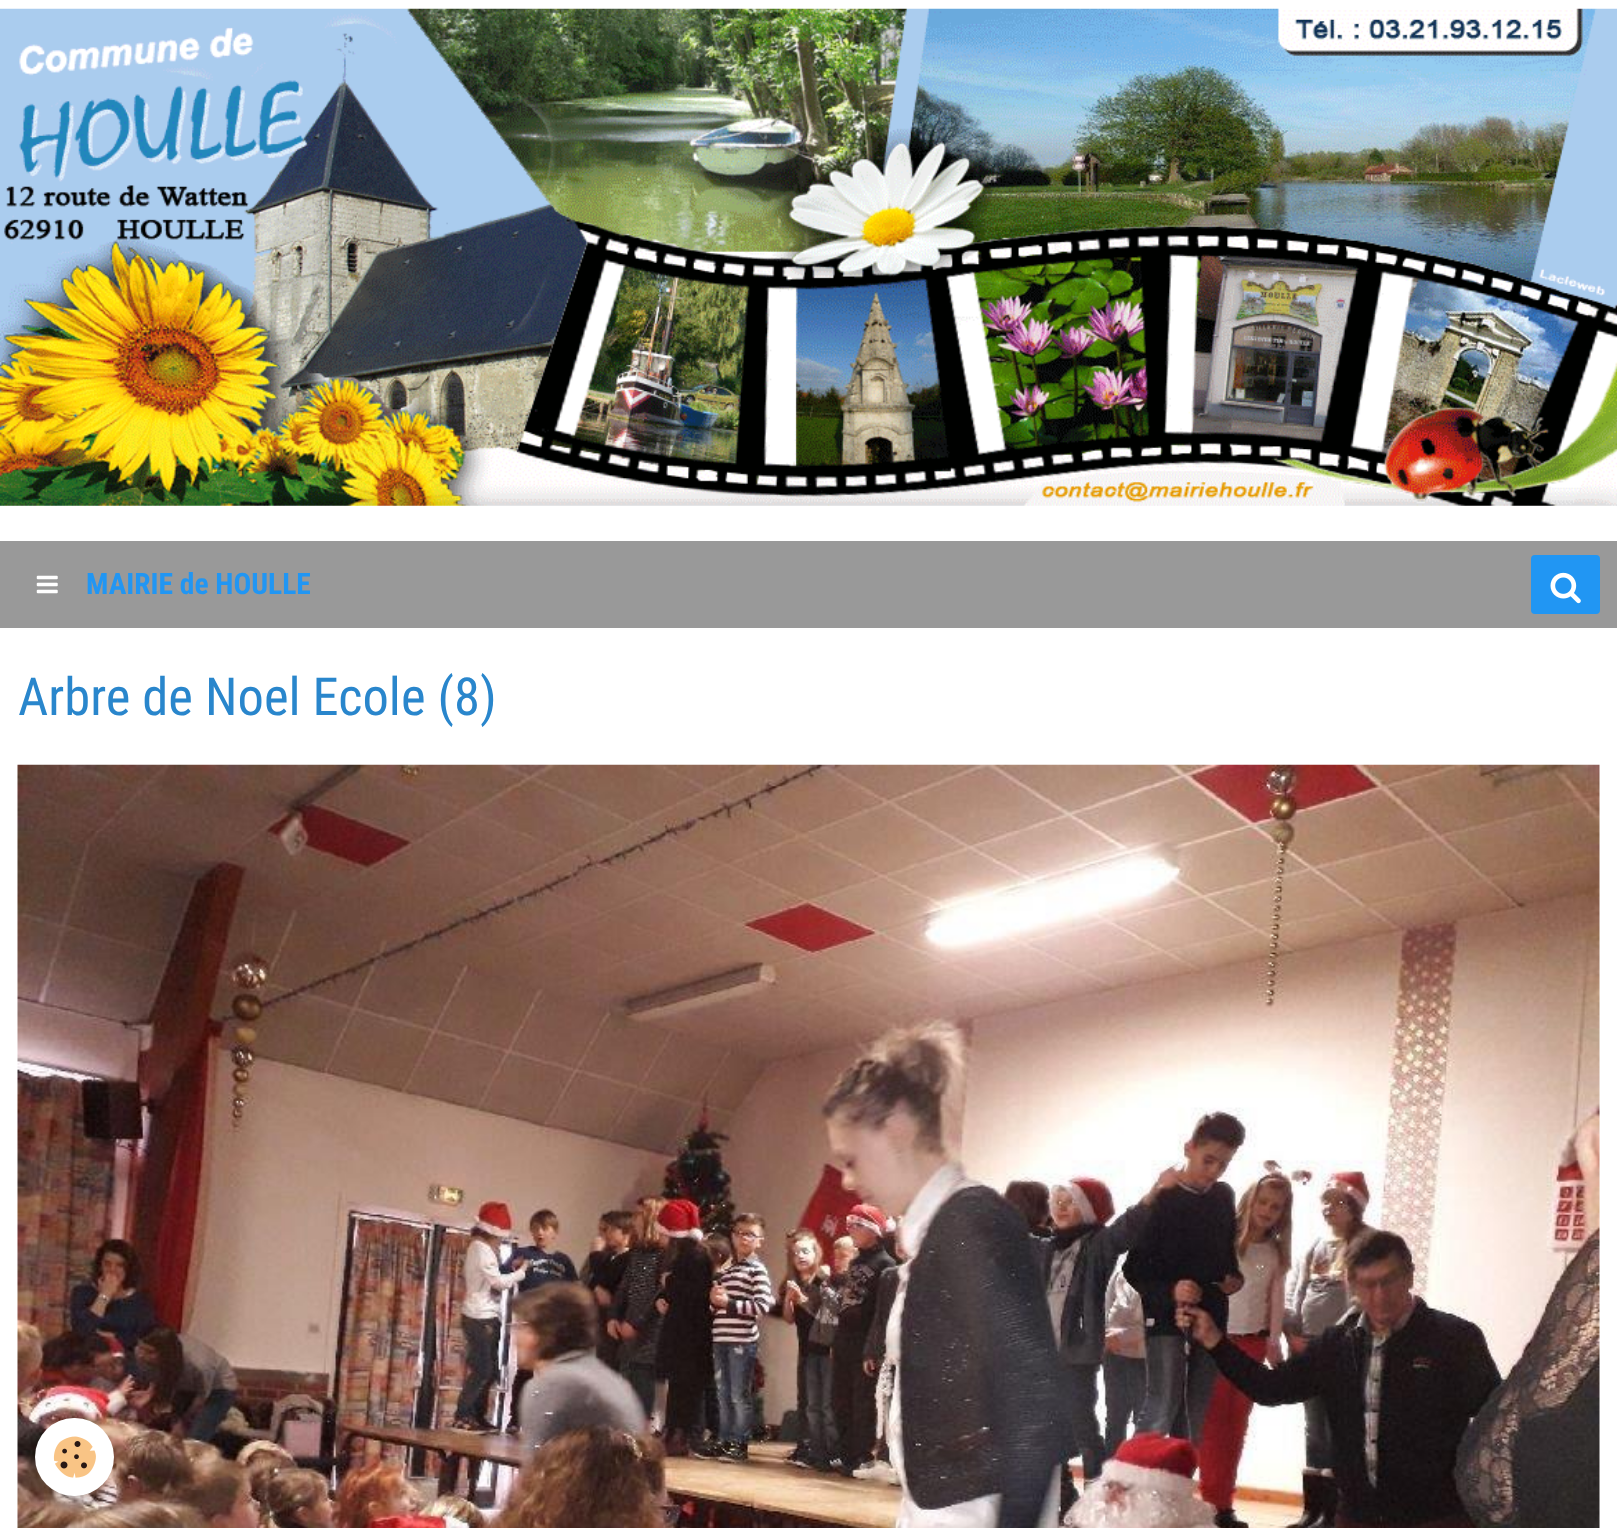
async function draw(canvas) {
  canvas.width = 1617
  canvas.height = 1528
  const ctx = canvas.getContext('2d')
  ctx.miterLimit = 4
  ctx.fontKerning = 'normal'
  async function loadImage(src) {
    const img = new Image()
    img.src = src
    await img.decode()
    return img
  }

  ctx.fillStyle = '#fff'
  ctx.fillRect(0, 0, 1617, 1528)
  ctx.drawImage(await loadImage('image0.png'), 0, 8, 1617, 498)
  ctx.fillStyle = '#999'
  ctx.fillRect(0, 541, 1617, 87)
  ctx.drawImage(await loadImage('image1.png'), 36, 575, 22, 19)
  ctx.font = 'bold 29.5px Roboto Condensed'
  ctx.fillStyle = '#2196f3'
  ctx.fillText('MAIRIE de HOULLE', 86, 594)
  ctx.beginPath()
  ctx.roundRect(1531, 555, 69, 59, 4)
  ctx.fill()
  ctx.drawImage(await loadImage('image2.png'), 1550, 572, 31, 32)
  ctx.font = '52.5px Roboto Condensed'
  ctx.fillStyle = '#2986cc'
  ctx.fillText('Arbre de Noel Ecole (8)', 18, 715)
  ctx.drawImage(await loadImage('image3.png'), 17, 764, 1583, 764)
  ctx.fillStyle = '#0000003d'
  ctx.filter = 'blur(9px)'
  ctx.beginPath()
  ctx.roundRect(35, 1423, 79, 79, 39.5)
  ctx.fill()
  ctx.filter = 'none'
  ctx.fillStyle = '#fff'
  ctx.beginPath()
  ctx.roundRect(35, 1418, 79, 78, 39)
  ctx.fill()
  ctx.drawImage(await loadImage('image4.png'), 53, 1436, 43, 42)
}

draw(document.querySelector('canvas'))
